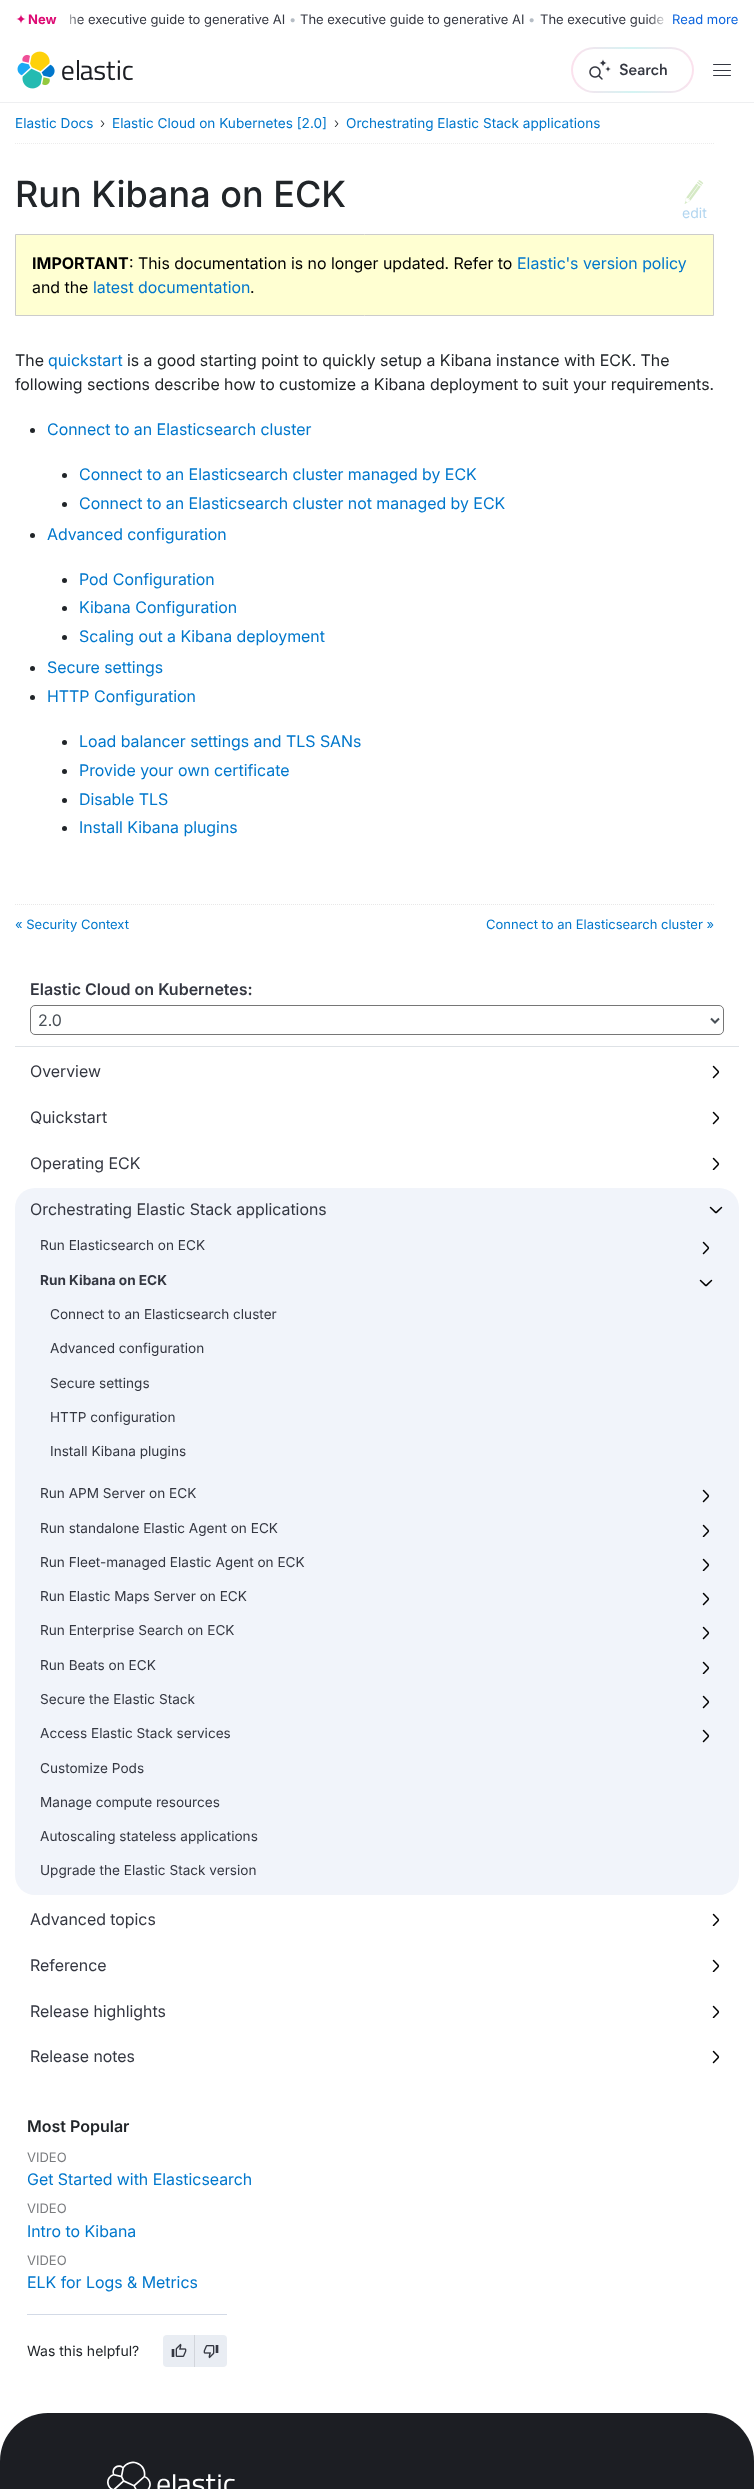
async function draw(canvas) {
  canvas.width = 754
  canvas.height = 2489
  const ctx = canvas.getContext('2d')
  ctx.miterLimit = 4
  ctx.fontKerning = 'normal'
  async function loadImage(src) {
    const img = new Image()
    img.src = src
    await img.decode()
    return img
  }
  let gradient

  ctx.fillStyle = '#fff'
  ctx.fillRect(0, 0, 754, 2489)
  ctx.fillStyle = '#eeeff1'
  ctx.fillRect(0, 102, 754, 1)
  ctx.drawImage(await loadImage('image0.png'), 16, 14, 10, 10)
  ctx.font = 'bold 13px Inter'
  ctx.fillStyle = '#dd0a73'
  ctx.fillText('New', 28, 24)
  ctx.font = '13px Inter'
  ctx.fillStyle = '#343741'
  ctx.fillText('he executive guide to generative AI', 69, 24)
  ctx.fillStyle = '#b5bcc4'
  ctx.fillText('•', 289, 24)
  ctx.fillStyle = '#343741'
  ctx.fillText('The executive guide to generative AI', 300, 24)
  ctx.fillStyle = '#b5bcc4'
  ctx.fillText('•', 528, 24)
  ctx.fillStyle = '#343741'
  ctx.fillText('The executive guide', 540, 24)
  gradient = ctx.createLinearGradient(61, 19, 81, 19)
  gradient.addColorStop(0, '#fff')
  gradient.addColorStop(1, '#ffffff00')
  ctx.fillStyle = gradient
  ctx.fillRect(69, 14, 12, 10)
  gradient = ctx.createLinearGradient(668, 19, 648, 19)
  gradient.addColorStop(0, '#fff')
  gradient.addColorStop(1, '#ffffff00')
  ctx.fillStyle = gradient
  ctx.fillRect(649, 14, 15, 11)
  ctx.fillStyle = '#0b64dd'
  ctx.fillText('Read more', 672, 24)
  ctx.drawImage(await loadImage('image1.png'), 17, 51, 116, 38)
  gradient = ctx.createLinearGradient(571, 70, 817, 70)
  gradient.addColorStop(0, '#fce1ed')
  gradient.addColorStop(0.25, '#d4f4f3')
  gradient.addColorStop(0.5, '#fce1ed')
  gradient.addColorStop(0.75, '#d4f4f3')
  gradient.addColorStop(1, '#fce1ed')
  ctx.fillStyle = gradient
  ctx.beginPath()
  ctx.roundRect(571, 47, 123, 46, 23)
  ctx.fill()
  ctx.fillStyle = '#fff'
  ctx.beginPath()
  ctx.roundRect(573, 49, 119, 42, 21)
  ctx.fill()
  ctx.drawImage(await loadImage('image2.png'), 589, 59, 22, 21)
  ctx.font = '600 16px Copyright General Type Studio'
  ctx.fillStyle = '#343741'
  ctx.fillText('Search', 619, 75)
  ctx.beginPath()
  ctx.roundRect(713, 64, 18, 1, 0.5)
  ctx.fill()
  ctx.beginPath()
  ctx.roundRect(713, 70, 18, 1, 0.5)
  ctx.fill()
  ctx.beginPath()
  ctx.roundRect(713, 75, 18, 1, 0.5)
  ctx.fill()
  ctx.beginPath()
  ctx.moveTo(15, 143.5)
  ctx.lineTo(714, 143.5)
  ctx.strokeStyle = '#ececec'
  ctx.setLineDash([1, 1])
  ctx.stroke()
  ctx.font = '13.6px Inter'
  ctx.fillStyle = '#07c'
  ctx.fillText('Elastic Docs', 15, 128)
  ctx.font = '300 14px Inter'
  ctx.fillStyle = '#212529'
  ctx.fillText('›', 100, 128)
  ctx.font = '13.6px Inter'
  ctx.fillStyle = '#07c'
  ctx.fillText('Elastic Cloud on Kubernetes [2.0]', 112, 128)
  ctx.font = '300 14px Inter'
  ctx.fillStyle = '#212529'
  ctx.fillText('›', 334, 128)
  ctx.font = '13.6px Inter'
  ctx.fillStyle = '#07c'
  ctx.fillText('Orchestrating Elastic Stack applications', 346, 128)
  ctx.font = '500 36px Inter'
  ctx.fillStyle = '#212529'
  ctx.fillText('Run Kibana on ECK', 15, 207)
  ctx.drawImage(await loadImage('image3.png'), 684, 180, 20, 24)
  ctx.font = '14px Inter'
  ctx.fillStyle = '#b3d6f0'
  ctx.fillText('edit', 682, 218)
  ctx.fillStyle = '#ffffd2'
  ctx.beginPath()
  ctx.rect(15.5, 234.5, 698, 81)
  ctx.fill()
  ctx.strokeStyle = '#ccc'
  ctx.setLineDash([])
  ctx.stroke()
  ctx.font = 'bold 16px Inter'
  ctx.fillStyle = '#000'
  ctx.fillText('IMPORTANT', 32, 269)
  ctx.font = '16px "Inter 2"'
  ctx.fillText(': This documentation is no longer updated. Refer to', 129, 269)
  ctx.fillStyle = '#07c'
  ctx.fillText('Elastic\'s version policy', 517, 269)
  ctx.fillStyle = '#000'
  ctx.fillText('and the', 32, 293)
  ctx.fillStyle = '#07c'
  ctx.fillText('latest documentation', 93, 293)
  ctx.fillStyle = '#000'
  ctx.fillText('.', 250, 293)
  ctx.fillStyle = '#212529'
  ctx.fillText('The', 15, 366)
  ctx.fillStyle = '#07c'
  ctx.fillText('quickstart', 48, 366)
  ctx.fillStyle = '#212529'
  ctx.fillText('is a good starting point to quickly setup a Kibana instance with ECK. The', 127, 366)
  ctx.fillText('following sections describe how to customize a Kibana deployment to suit your requirements.', 15, 390)
  ctx.beginPath()
  ctx.arc(32.5, 430.5, 2.5, 0, 2 * Math.PI)
  ctx.fill()
  ctx.fillStyle = '#07c'
  ctx.fillText('Connect to an Elasticsearch cluster', 47, 435)
  ctx.fillStyle = '#212529'
  ctx.beginPath()
  ctx.arc(64.5, 475.5, 2.5, 0, 2 * Math.PI)
  ctx.fill()
  ctx.fillStyle = '#07c'
  ctx.fillText('Connect to an Elasticsearch cluster managed by ECK', 79, 480)
  ctx.fillStyle = '#212529'
  ctx.beginPath()
  ctx.arc(64.5, 504.5, 2.5, 0, 2 * Math.PI)
  ctx.fill()
  ctx.fillStyle = '#07c'
  ctx.fillText('Connect to an Elasticsearch cluster not managed by ECK', 79, 509)
  ctx.fillStyle = '#212529'
  ctx.beginPath()
  ctx.arc(32.5, 535.5, 2.5, 0, 2 * Math.PI)
  ctx.fill()
  ctx.fillStyle = '#07c'
  ctx.fillText('Advanced configuration', 47, 540)
  ctx.fillStyle = '#212529'
  ctx.beginPath()
  ctx.arc(64.5, 580.5, 2.5, 0, 2 * Math.PI)
  ctx.fill()
  ctx.fillStyle = '#07c'
  ctx.fillText('Pod Configuration', 79, 585)
  ctx.fillStyle = '#212529'
  ctx.beginPath()
  ctx.arc(64.5, 608.5, 2.5, 0, 2 * Math.PI)
  ctx.fill()
  ctx.fillStyle = '#07c'
  ctx.fillText('Kibana Configuration', 79, 613)
  ctx.fillStyle = '#212529'
  ctx.beginPath()
  ctx.arc(64.5, 637.5, 2.5, 0, 2 * Math.PI)
  ctx.fill()
  ctx.fillStyle = '#07c'
  ctx.fillText('Scaling out a Kibana deployment', 79, 642)
  ctx.fillStyle = '#212529'
  ctx.beginPath()
  ctx.arc(32.5, 668.5, 2.5, 0, 2 * Math.PI)
  ctx.fill()
  ctx.fillStyle = '#07c'
  ctx.fillText('Secure settings', 47, 673)
  ctx.fillStyle = '#212529'
  ctx.beginPath()
  ctx.arc(32.5, 697.5, 2.5, 0, 2 * Math.PI)
  ctx.fill()
  ctx.fillStyle = '#07c'
  ctx.fillText('HTTP Configuration', 47, 702)
  ctx.fillStyle = '#212529'
  ctx.beginPath()
  ctx.arc(64.5, 742.5, 2.5, 0, 2 * Math.PI)
  ctx.fill()
  ctx.fillStyle = '#07c'
  ctx.fillText('Load balancer settings and TLS SANs', 79, 747)
  ctx.fillStyle = '#212529'
  ctx.beginPath()
  ctx.arc(64.5, 771.5, 2.5, 0, 2 * Math.PI)
  ctx.fill()
  ctx.fillStyle = '#07c'
  ctx.fillText('Provide your own certificate', 79, 776)
  ctx.fillStyle = '#212529'
  ctx.beginPath()
  ctx.arc(64.5, 800.5, 2.5, 0, 2 * Math.PI)
  ctx.fill()
  ctx.fillStyle = '#07c'
  ctx.fillText('Disable TLS', 79, 805)
  ctx.fillStyle = '#212529'
  ctx.beginPath()
  ctx.arc(64.5, 828.5, 2.5, 0, 2 * Math.PI)
  ctx.fill()
  ctx.fillStyle = '#07c'
  ctx.fillText('Install Kibana plugins', 79, 833)
  ctx.beginPath()
  ctx.moveTo(15, 904.5)
  ctx.lineTo(714, 904.5)
  ctx.strokeStyle = '#e8e8e8'
  ctx.setLineDash([1, 1])
  ctx.stroke()
  ctx.font = '13px Inter'
  ctx.fillText('« Security Context', 15, 929)
  ctx.fillText('Connect to an Elasticsearch cluster »', 486, 929)
  ctx.fillStyle = '#dee2e6'
  ctx.fillRect(15, 1046, 724, 1)
  ctx.font = '600 16px Inter'
  ctx.fillStyle = '#343741'
  ctx.fillText('Elastic Cloud on Kubernetes:', 30, 995)
  ctx.beginPath()
  ctx.roundRect(30.5, 1005.5, 693, 29, 4.5)
  ctx.strokeStyle = '#767676'
  ctx.setLineDash([])
  ctx.stroke()
  ctx.beginPath()
  ctx.moveTo(711, 1018.5)
  ctx.lineTo(715, 1022.5)
  ctx.lineTo(719, 1018.5)
  ctx.strokeStyle = '#495057'
  ctx.lineWidth = 2
  ctx.stroke()
  ctx.font = '16px "Inter 2"'
  ctx.fillStyle = '#495057'
  ctx.fillText('2.0', 38, 1026)
  ctx.fillStyle = '#343741'
  ctx.fillText('Overview', 30, 1077)
  ctx.drawImage(await loadImage('image4.png'), 712, 1065, 8, 14)
  ctx.fillText('Quickstart', 30, 1123)
  ctx.drawImage(await loadImage('image4.png'), 712, 1111, 8, 14)
  ctx.fillText('Operating ECK', 30, 1169)
  ctx.drawImage(await loadImage('image5.png'), 712, 1157, 8, 13)
  ctx.fillStyle = '#f1f4fa'
  ctx.beginPath()
  ctx.roundRect(15, 1188, 724, 707, 20)
  ctx.fill()
  ctx.fillStyle = '#343741'
  ctx.fillText('Orchestrating Elastic Stack applications', 30, 1215)
  ctx.drawImage(await loadImage('image6.png'), 709, 1206, 14, 8)
  ctx.font = '13.6px Inter'
  ctx.fillText('Run Elasticsearch on ECK', 40, 1250)
  ctx.drawImage(await loadImage('image7.png'), 702, 1241, 8, 14)
  ctx.font = 'bold 13.6px Inter'
  ctx.fillText('Run Kibana on ECK', 40, 1285)
  ctx.drawImage(await loadImage('image6.png'), 699, 1279, 14, 8)
  ctx.font = '13.6px Inter'
  ctx.fillText('Connect to an Elasticsearch cluster', 50, 1319)
  ctx.fillText('Advanced configuration', 50, 1353)
  ctx.fillText('Secure settings', 50, 1388)
  ctx.fillText('HTTP configuration', 50, 1422)
  ctx.fillText('Install Kibana plugins', 50, 1456)
  ctx.fillText('Run APM Server on ECK', 40, 1498)
  ctx.drawImage(await loadImage('image7.png'), 702, 1489, 8, 14)
  ctx.fillText('Run standalone Elastic Agent on ECK', 40, 1533)
  ctx.drawImage(await loadImage('image8.png'), 702, 1524, 8, 13)
  ctx.fillText('Run Fleet-managed Elastic Agent on ECK', 40, 1567)
  ctx.drawImage(await loadImage('image8.png'), 702, 1558, 8, 13)
  ctx.fillText('Run Elastic Maps Server on ECK', 40, 1601)
  ctx.drawImage(await loadImage('image7.png'), 702, 1592, 8, 14)
  ctx.fillText('Run Enterprise Search on ECK', 40, 1635)
  ctx.drawImage(await loadImage('image7.png'), 702, 1626, 8, 14)
  ctx.fillText('Run Beats on ECK', 40, 1670)
  ctx.drawImage(await loadImage('image8.png'), 702, 1661, 8, 13)
  ctx.fillText('Secure the Elastic Stack', 40, 1704)
  ctx.drawImage(await loadImage('image7.png'), 702, 1695, 8, 14)
  ctx.fillText('Access Elastic Stack services', 40, 1738)
  ctx.drawImage(await loadImage('image7.png'), 702, 1729, 8, 14)
  ctx.fillText('Customize Pods', 40, 1773)
  ctx.fillText('Manage compute resources', 40, 1807)
  ctx.fillText('Autoscaling stateless applications', 40, 1841)
  ctx.fillText('Upgrade the Elastic Stack version', 40, 1875)
  ctx.font = '16px "Inter 2"'
  ctx.fillText('Advanced topics', 30, 1925)
  ctx.drawImage(await loadImage('image5.png'), 712, 1913, 8, 13)
  ctx.fillText('Reference', 30, 1971)
  ctx.drawImage(await loadImage('image5.png'), 712, 1959, 8, 13)
  ctx.fillText('Release highlights', 30, 2017)
  ctx.drawImage(await loadImage('image5.png'), 712, 2005, 8, 13)
  ctx.fillText('Release notes', 30, 2062)
  ctx.drawImage(await loadImage('image4.png'), 712, 2050, 8, 14)
  ctx.font = '600 16px Inter'
  ctx.fillStyle = '#212529'
  ctx.fillText('Most Popular', 27, 2132)
  ctx.font = '13px Inter'
  ctx.fillStyle = '#7a7c7f'
  ctx.fillText('VIDEO', 27, 2162)
  ctx.font = '16px "Inter 2"'
  ctx.fillStyle = '#07c'
  ctx.fillText('Get Started with Elasticsearch', 27, 2185)
  ctx.font = '13px Inter'
  ctx.fillStyle = '#7a7c7f'
  ctx.fillText('VIDEO', 27, 2213)
  ctx.font = '16px "Inter 2"'
  ctx.fillStyle = '#07c'
  ctx.fillText('Intro to Kibana', 27, 2237)
  ctx.font = '13px Inter'
  ctx.fillStyle = '#7a7c7f'
  ctx.fillText('VIDEO', 27, 2265)
  ctx.font = '16px "Inter 2"'
  ctx.fillStyle = '#07c'
  ctx.fillText('ELK for Logs & Metrics', 27, 2288)
  ctx.fillStyle = '#d3dae6'
  ctx.fillRect(27, 2314, 200, 1)
  ctx.font = '14px Inter'
  ctx.fillStyle = '#212529'
  ctx.fillText('Was this helpful?', 27, 2356)
  ctx.fillStyle = '#e9edf3'
  ctx.beginPath()
  ctx.roundRect(163, 2335, 32, 32, [4, 0, 0, 4])
  ctx.fill()
  ctx.drawImage(await loadImage('image9.png'), 171, 2343, 16, 14)
  ctx.fillStyle = '#d2d5db'
  ctx.fillRect(194, 2335, 1, 32)
  ctx.fillStyle = '#e9edf3'
  ctx.beginPath()
  ctx.roundRect(195, 2335, 32, 32, [0, 4, 4, 0])
  ctx.fill()
  ctx.drawImage(await loadImage('image10.png'), 203, 2345, 16, 14)
  ctx.fillStyle = '#1c1e23'
  ctx.beginPath()
  ctx.moveTo(48, 2413)
  ctx.lineTo(706, 2413)
  ctx.bezierCurveTo(732.5, 2413, 754, 2434.5, 754, 2461)
  ctx.lineTo(754, 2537)
  ctx.lineTo(0, 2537)
  ctx.lineTo(0, 2461)
  ctx.bezierCurveTo(0, 2434.5, 21.5, 2413, 48, 2413)
  ctx.closePath()
  ctx.fill()
  ctx.drawImage(await loadImage('image11.png'), 107, 2461, 128, 28)
}

draw(document.querySelector('canvas'))
